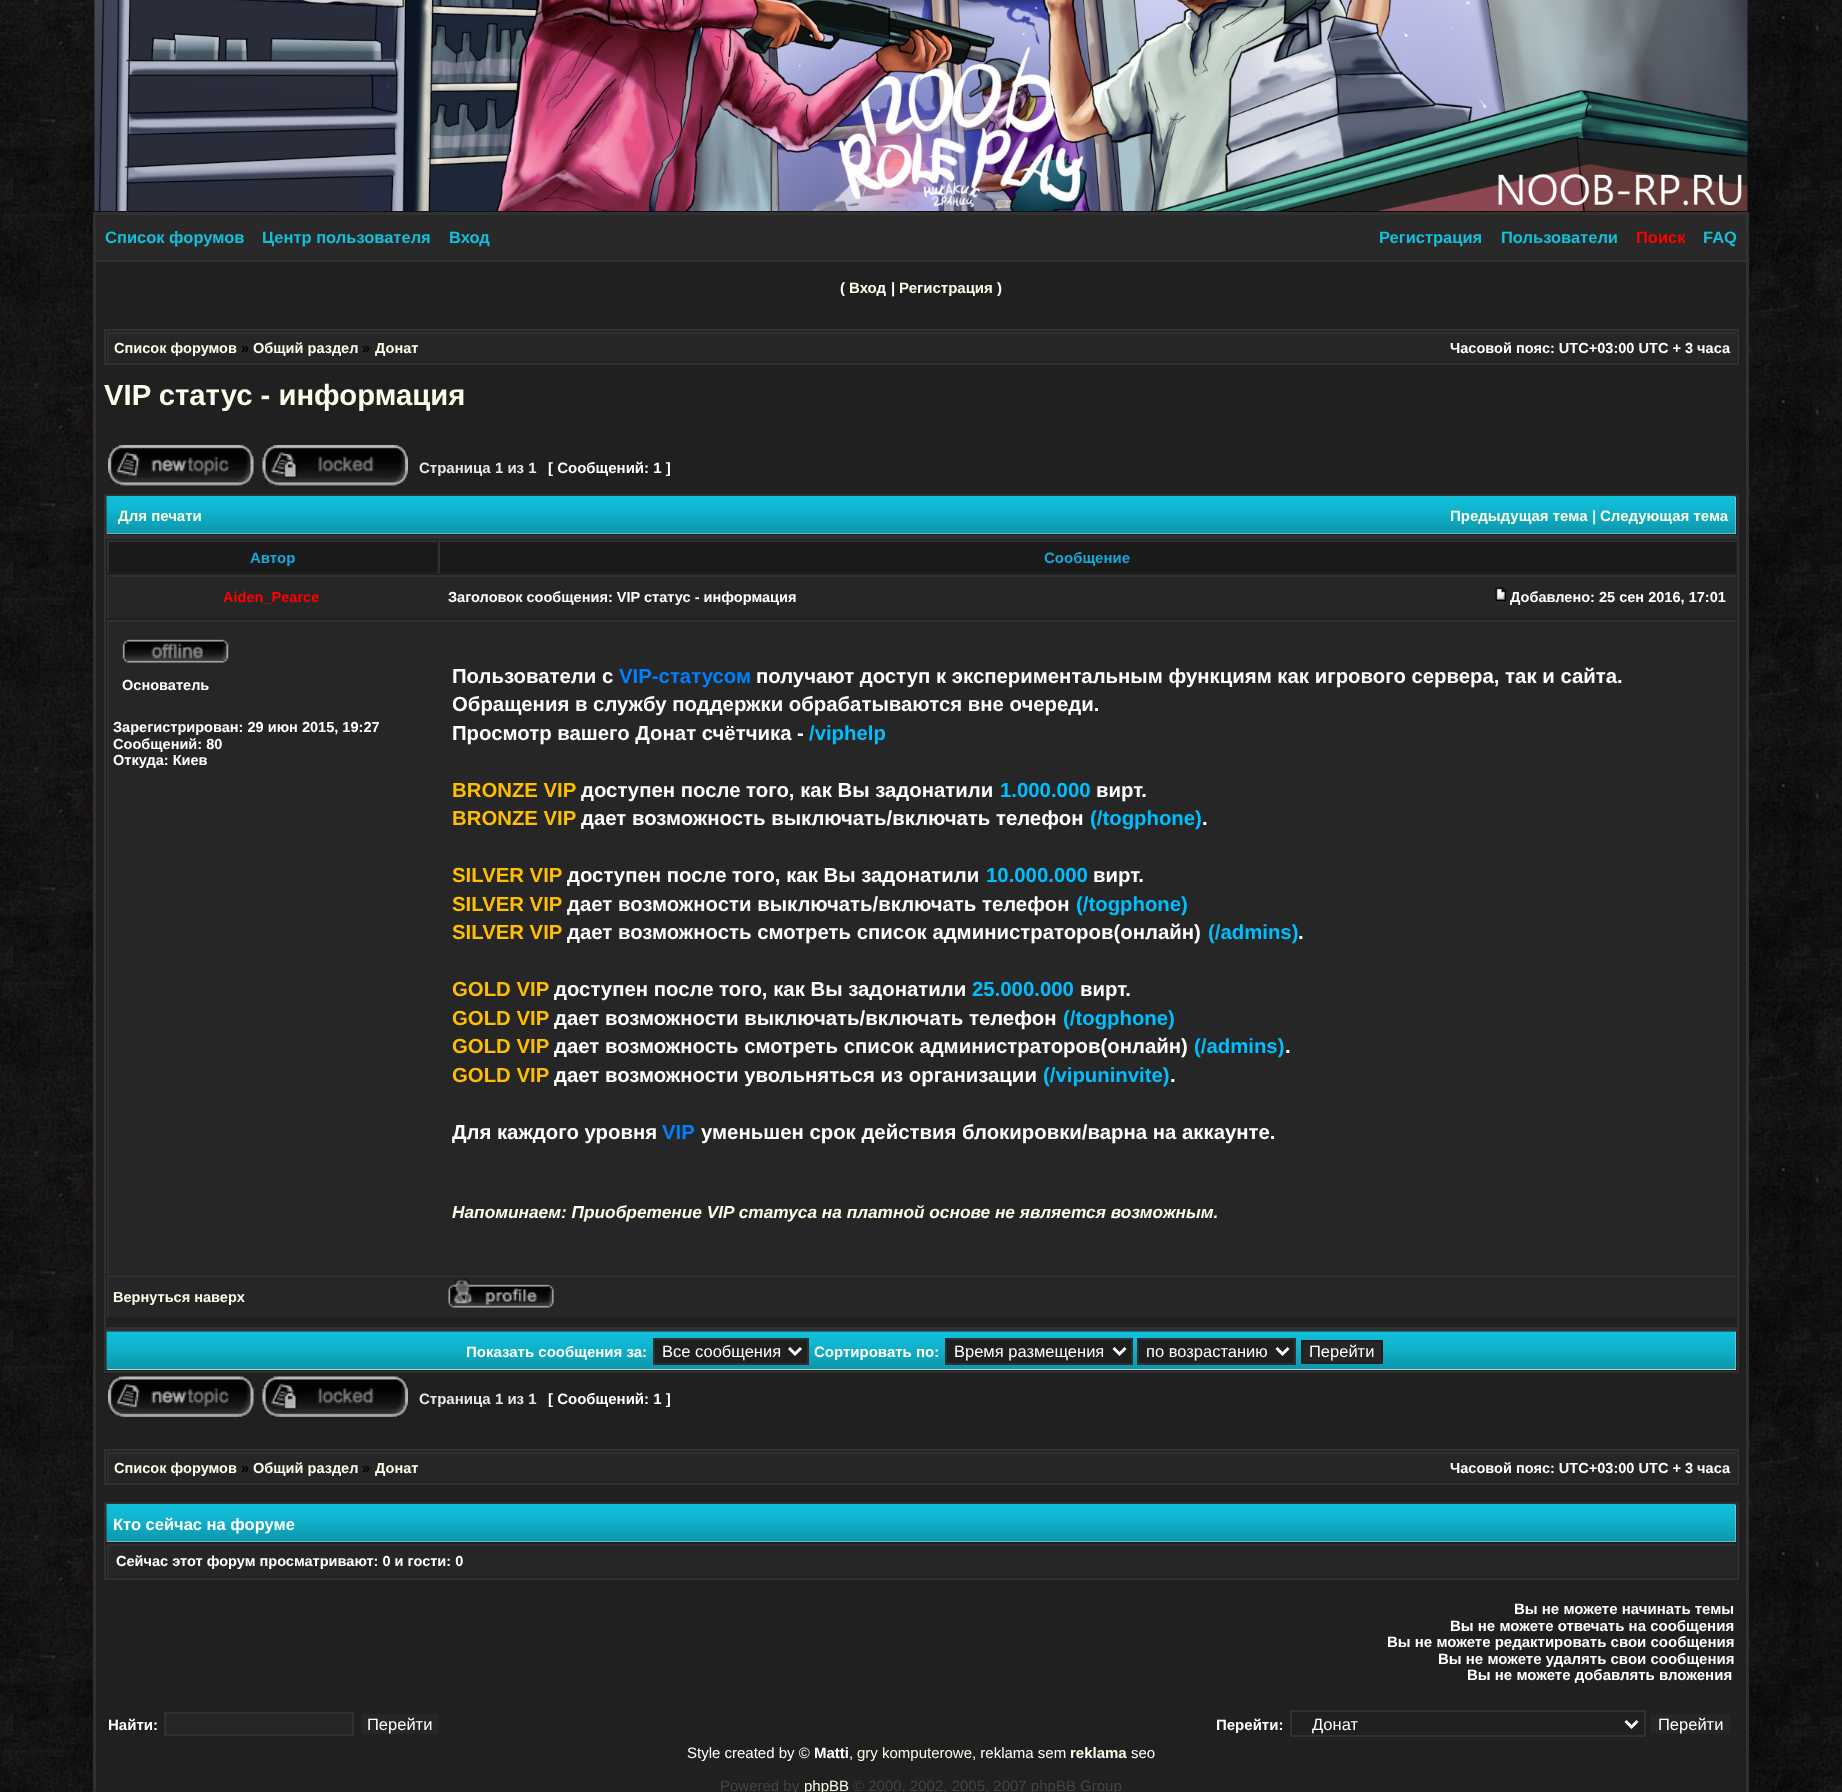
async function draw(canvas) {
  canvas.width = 1842
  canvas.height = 1792
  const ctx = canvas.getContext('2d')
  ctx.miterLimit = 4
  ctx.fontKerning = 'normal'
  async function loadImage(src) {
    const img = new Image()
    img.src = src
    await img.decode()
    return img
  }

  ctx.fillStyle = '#fff'
  ctx.fillRect(0, 0, 1842, 1792)
  ctx.drawImage(await loadImage('image0.png'), 0, 0, 1842, 1792)
  ctx.drawImage(await loadImage('image1.png'), 94, 0, 1654, 211)
  ctx.fillStyle = '#202020'
  ctx.fillRect(96, 262, 1650, 1530)
  ctx.fillStyle = '#303030'
  ctx.fillRect(93, 212, 1656, 1)
  ctx.fillRect(1746, 212, 3, 1580)
  ctx.fillRect(93, 212, 3, 1580)
  ctx.fillStyle = '#292929'
  ctx.fillRect(96, 215, 1650, 45)
  ctx.fillStyle = '#303030'
  ctx.fillRect(96, 213, 1650, 2)
  ctx.fillRect(96, 260, 1650, 2)
  ctx.font = 'bold 16.5px Liberation Sans'
  ctx.fillStyle = '#11c0db'
  ctx.fillText('Список форумов', 105, 243)
  ctx.fillText('Центр пользователя', 262, 243)
  ctx.fillText('Вход', 449, 243)
  ctx.fillText('Регистрация', 1379, 243)
  ctx.fillText('Пользователи', 1501, 243)
  ctx.fillStyle = '#f00'
  ctx.fillText('Поиск', 1636, 243)
  ctx.fillStyle = '#11c0db'
  ctx.fillText('FAQ', 1703, 243)
  ctx.font = 'bold 15px Liberation Sans'
  ctx.fillStyle = '#fff'
  ctx.fillText('(', 840, 293)
  ctx.fillStyle = '#fcfceb'
  ctx.fillText('Вход', 849, 293)
  ctx.fillStyle = '#fff'
  ctx.fillText('|', 891, 293)
  ctx.fillStyle = '#fcfceb'
  ctx.fillText('Регистрация', 899, 293)
  ctx.fillStyle = '#fff'
  ctx.fillText(')', 997, 293)
  ctx.strokeStyle = '#303030'
  ctx.lineWidth = 2
  ctx.strokeRect(105, 330, 1633, 34)
  ctx.fillStyle = '#262626'
  ctx.fillRect(109, 334, 1627, 28)
  ctx.fillStyle = '#303030'
  ctx.fillRect(107, 332, 1629, 2)
  ctx.fillRect(107, 332, 2, 30)
  ctx.font = 'bold 14.55px Liberation Sans'
  ctx.fillStyle = '#fcfceb'
  ctx.fillText('Список форумов', 114, 353)
  ctx.fillStyle = '#000'
  ctx.fillText('»', 241, 353)
  ctx.fillStyle = '#fcfceb'
  ctx.fillText('Общий раздел', 253, 353)
  ctx.fillStyle = '#000'
  ctx.fillText('»', 362, 353)
  ctx.fillStyle = '#fcfceb'
  ctx.fillText('Донат', 375, 353)
  ctx.fillStyle = '#fff'
  ctx.fillText('Часовой пояс: UTC+03:00 UTC + 3 часа', 1450, 353)
  ctx.font = 'bold 29.25px Liberation Sans'
  ctx.fillStyle = '#fcfceb'
  ctx.fillText('VIP статус - информация', 104, 405)
  ctx.drawImage(await loadImage('image2.png'), 108, 445, 146, 41)
  ctx.drawImage(await loadImage('image3.png'), 262, 445, 146, 41)
  ctx.font = 'bold 15px Liberation Sans'
  ctx.fillStyle = '#e7e7e7'
  ctx.fillText('Страница 1 из 1', 419, 473)
  ctx.fillStyle = '#fff'
  ctx.fillText('[ Сообщений: 1 ]', 548, 473)
  ctx.strokeRect(105, 495, 1633, 41)
  ctx.fillStyle = '#c7d0d7'
  ctx.fillRect(107, 497, 1629, 37)
  ctx.drawImage(await loadImage('image4.png'), 106, 496, 1630, 38)
  ctx.fillStyle = '#fcfceb'
  ctx.fillText('Для печати', 118, 521)
  ctx.fillText('Предыдущая тема', 1450, 521)
  ctx.fillStyle = '#e7e7e7'
  ctx.fillText('|', 1592, 521)
  ctx.fillStyle = '#fcfceb'
  ctx.fillText('Следующая тема', 1600, 521)
  ctx.strokeRect(105, 538, 1633, 790)
  ctx.fillStyle = '#1a1a1a'
  ctx.fillRect(109, 542, 328, 31)
  ctx.fillStyle = '#303030'
  ctx.fillRect(107, 540, 330, 2)
  ctx.fillRect(107, 540, 2, 33)
  ctx.fillStyle = '#16aadb'
  ctx.fillText('Автор', 250, 563)
  ctx.fillStyle = '#1a1a1a'
  ctx.fillRect(440, 542, 1296, 31)
  ctx.fillStyle = '#303030'
  ctx.fillRect(438, 540, 1298, 2)
  ctx.fillRect(438, 540, 2, 33)
  ctx.fillStyle = '#16aadb'
  ctx.fillText('Сообщение', 1044, 563)
  ctx.fillStyle = '#262626'
  ctx.fillRect(109, 577, 1627, 41)
  ctx.fillStyle = '#303030'
  ctx.fillRect(107, 575, 1629, 2)
  ctx.fillRect(107, 575, 2, 43)
  ctx.font = 'bold 14.55px Liberation Sans'
  ctx.fillStyle = '#f00'
  ctx.fillText('Aiden_Pearce', 223, 602)
  ctx.fillStyle = '#fff'
  ctx.fillText('Заголовок сообщения: VIP статус - информация', 448, 602)
  ctx.drawImage(await loadImage('image5.png'), 1495, 587, 12, 14)
  ctx.fillText('Добавлено: 25 сен 2016, 17:01', 1510, 602)
  ctx.fillStyle = '#262626'
  ctx.fillRect(109, 622, 1627, 652)
  ctx.fillStyle = '#303030'
  ctx.fillRect(107, 620, 1629, 2)
  ctx.fillRect(107, 620, 2, 654)
  ctx.drawImage(await loadImage('image6.png'), 122, 639, 107, 24)
  ctx.fillStyle = '#fff'
  ctx.fillText('Основатель', 122, 690)
  ctx.fillText('Зарегистрирован: 29 июн 2015, 19:27', 113, 732)
  ctx.fillText('Сообщений: 80', 113, 749)
  ctx.fillText('Откуда: Киев', 113, 765)
  ctx.font = 'bold 20.35px Liberation Sans'
  ctx.fillText('Пользователи с', 452, 683)
  ctx.fillStyle = '#0080ff'
  ctx.fillText('VIP-статусом', 619, 683)
  ctx.fillStyle = '#fff'
  ctx.fillText('получают доступ к экспериментальным функциям как игрового сервера, так и сайта.', 756, 683)
  ctx.fillText('Обращения в службу поддержки обрабатываются вне очереди.', 452, 711)
  ctx.fillText('Просмотр вашего Донат счётчика -', 452, 740)
  ctx.fillStyle = '#00bfff'
  ctx.fillText('/viphelp', 809, 740)
  ctx.fillStyle = '#ffbf00'
  ctx.fillText('BRONZE VIP', 452, 797)
  ctx.fillStyle = '#fff'
  ctx.fillText('доступен после того, как Вы задонатили', 581, 797)
  ctx.fillStyle = '#00bfff'
  ctx.fillText('1.000.000', 1000, 797)
  ctx.fillStyle = '#fff'
  ctx.fillText('вирт.', 1096, 797)
  ctx.fillStyle = '#ffbf00'
  ctx.fillText('BRONZE VIP', 452, 825)
  ctx.fillStyle = '#fff'
  ctx.fillText('дает возможность выключать/включать телефон', 581, 825)
  ctx.fillStyle = '#00bfff'
  ctx.fillText('(/togphone)', 1090, 825)
  ctx.fillStyle = '#fff'
  ctx.fillText('.', 1202, 825)
  ctx.fillStyle = '#ffbf00'
  ctx.fillText('SILVER VIP', 452, 882)
  ctx.fillStyle = '#fff'
  ctx.fillText('доступен после того, как Вы задонатили', 567, 882)
  ctx.fillStyle = '#00bfff'
  ctx.fillText('10.000.000', 986, 882)
  ctx.fillStyle = '#fff'
  ctx.fillText('вирт.', 1093, 882)
  ctx.fillStyle = '#ffbf00'
  ctx.fillText('SILVER VIP', 452, 911)
  ctx.fillStyle = '#fff'
  ctx.fillText('дает возможности выключать/включать телефон', 567, 911)
  ctx.fillStyle = '#00bfff'
  ctx.fillText('(/togphone)', 1076, 911)
  ctx.fillStyle = '#ffbf00'
  ctx.fillText('SILVER VIP', 452, 939)
  ctx.fillStyle = '#fff'
  ctx.fillText('дает возможность смотреть список администраторов(онлайн)', 567, 939)
  ctx.fillStyle = '#00bfff'
  ctx.fillText('(/admins)', 1208, 939)
  ctx.fillStyle = '#fff'
  ctx.fillText('.', 1298, 939)
  ctx.fillStyle = '#ffbf00'
  ctx.fillText('GOLD VIP', 452, 996)
  ctx.fillStyle = '#fff'
  ctx.fillText('доступен после того, как Вы задонатили', 554, 996)
  ctx.fillStyle = '#00bfff'
  ctx.fillText('25.000.000', 972, 996)
  ctx.fillStyle = '#fff'
  ctx.fillText('вирт.', 1080, 996)
  ctx.fillStyle = '#ffbf00'
  ctx.fillText('GOLD VIP', 452, 1025)
  ctx.fillStyle = '#fff'
  ctx.fillText('дает возможности выключать/включать телефон', 554, 1025)
  ctx.fillStyle = '#00bfff'
  ctx.fillText('(/togphone)', 1063, 1025)
  ctx.fillStyle = '#ffbf00'
  ctx.fillText('GOLD VIP', 452, 1053)
  ctx.fillStyle = '#fff'
  ctx.fillText('дает возможность смотреть список администраторов(онлайн)', 554, 1053)
  ctx.fillStyle = '#00bfff'
  ctx.fillText('(/admins)', 1194, 1053)
  ctx.fillStyle = '#fff'
  ctx.fillText('.', 1285, 1053)
  ctx.fillStyle = '#ffbf00'
  ctx.fillText('GOLD VIP', 452, 1082)
  ctx.fillStyle = '#fff'
  ctx.fillText('дает возможности увольняться из организации', 554, 1082)
  ctx.fillStyle = '#00bfff'
  ctx.fillText('(/vipuninvite)', 1043, 1082)
  ctx.fillStyle = '#fff'
  ctx.fillText('.', 1170, 1082)
  ctx.fillText('Для каждого уровня', 452, 1139)
  ctx.fillStyle = '#0080ff'
  ctx.fillText('VIP', 662, 1139)
  ctx.fillStyle = '#fff'
  ctx.fillText('уменьшен срок действия блокировки/варна на аккаунте.', 701, 1139)
  ctx.font = 'italic bold 17.3px Liberation Sans'
  ctx.fillStyle = '#fcfceb'
  ctx.fillText('Напоминаем: Приобретение VIP статуса на платной основе не является возможным.', 452, 1218)
  ctx.fillStyle = '#262626'
  ctx.fillRect(109, 1277, 1627, 40)
  ctx.fillStyle = '#303030'
  ctx.fillRect(107, 1275, 1629, 2)
  ctx.fillRect(107, 1275, 2, 42)
  ctx.font = 'bold 14.55px Liberation Sans'
  ctx.fillStyle = '#fcfceb'
  ctx.fillText('Вернуться наверх', 113, 1302)
  ctx.drawImage(await loadImage('image7.png'), 448, 1279, 106, 29)
  ctx.strokeRect(105, 1330, 1633, 42)
  ctx.fillStyle = '#c7d0d7'
  ctx.fillRect(107, 1332, 1629, 38)
  ctx.drawImage(await loadImage('image8.png'), 106, 1331, 1630, 38)
  ctx.font = 'bold 15px Liberation Sans'
  ctx.fillStyle = '#fff'
  ctx.fillText('Показать сообщения за:', 466, 1357)
  ctx.fillStyle = '#1f1f1f'
  ctx.beginPath()
  ctx.rect(654, 1339, 154, 25)
  ctx.fill()
  ctx.stroke()
  ctx.beginPath()
  ctx.moveTo(789, 1348)
  ctx.lineTo(795, 1354)
  ctx.lineTo(801, 1348)
  ctx.strokeStyle = '#fff'
  ctx.lineWidth = 3
  ctx.stroke()
  ctx.font = '16.5px Liberation Sans'
  ctx.fillStyle = '#fff'
  ctx.fillText('Все сообщения', 662, 1357)
  ctx.font = 'bold 15px Liberation Sans'
  ctx.fillText('Сортировать по:', 814, 1357)
  ctx.fillStyle = '#1f1f1f'
  ctx.beginPath()
  ctx.rect(946, 1339, 186, 25)
  ctx.fill()
  ctx.strokeStyle = '#303030'
  ctx.lineWidth = 2
  ctx.stroke()
  ctx.beginPath()
  ctx.moveTo(1113.5, 1348)
  ctx.lineTo(1119.5, 1354)
  ctx.lineTo(1125.5, 1348)
  ctx.strokeStyle = '#fff'
  ctx.lineWidth = 3
  ctx.stroke()
  ctx.font = '16.5px Liberation Sans'
  ctx.fillStyle = '#fff'
  ctx.fillText('Время размещения', 954, 1357)
  ctx.fillStyle = '#1f1f1f'
  ctx.beginPath()
  ctx.rect(1138, 1339, 157, 25)
  ctx.fill()
  ctx.strokeStyle = '#303030'
  ctx.lineWidth = 2
  ctx.stroke()
  ctx.beginPath()
  ctx.moveTo(1276.5, 1348)
  ctx.lineTo(1282.5, 1354)
  ctx.lineTo(1288.5, 1348)
  ctx.strokeStyle = '#fff'
  ctx.lineWidth = 3
  ctx.stroke()
  ctx.fillStyle = '#fff'
  ctx.fillText('по возрастанию', 1146, 1357)
  ctx.fillStyle = '#262626'
  ctx.beginPath()
  ctx.rect(1302, 1341, 80, 22)
  ctx.fill()
  ctx.strokeStyle = '#1e1e1e'
  ctx.lineWidth = 2
  ctx.stroke()
  ctx.fillStyle = '#fff'
  ctx.fillText('Перейти', 1309, 1357)
  ctx.drawImage(await loadImage('image9.png'), 108, 1376, 146, 41)
  ctx.drawImage(await loadImage('image10.png'), 262, 1376, 146, 41)
  ctx.font = 'bold 15px Liberation Sans'
  ctx.fillStyle = '#e7e7e7'
  ctx.fillText('Страница 1 из 1', 419, 1404)
  ctx.fillStyle = '#fff'
  ctx.fillText('[ Сообщений: 1 ]', 548, 1404)
  ctx.strokeStyle = '#303030'
  ctx.strokeRect(105, 1450, 1633, 34)
  ctx.fillStyle = '#262626'
  ctx.fillRect(109, 1454, 1627, 28)
  ctx.fillStyle = '#303030'
  ctx.fillRect(107, 1452, 1629, 2)
  ctx.fillRect(107, 1452, 2, 30)
  ctx.font = 'bold 14.55px Liberation Sans'
  ctx.fillStyle = '#fcfceb'
  ctx.fillText('Список форумов', 114, 1473)
  ctx.fillStyle = '#000'
  ctx.fillText('»', 241, 1473)
  ctx.fillStyle = '#fcfceb'
  ctx.fillText('Общий раздел', 253, 1473)
  ctx.fillStyle = '#000'
  ctx.fillText('»', 362, 1473)
  ctx.fillStyle = '#fcfceb'
  ctx.fillText('Донат', 375, 1473)
  ctx.fillStyle = '#fff'
  ctx.fillText('Часовой пояс: UTC+03:00 UTC + 3 часа', 1450, 1473)
  ctx.strokeRect(105, 1503, 1633, 76)
  ctx.fillStyle = '#c7d0d7'
  ctx.fillRect(107, 1505, 1629, 37)
  ctx.drawImage(await loadImage('image4.png'), 106, 1504, 1630, 38)
  ctx.font = 'bold 16.5px Liberation Sans'
  ctx.fillStyle = '#fff'
  ctx.fillText('Кто сейчас на форуме', 113, 1530)
  ctx.fillStyle = '#262626'
  ctx.fillRect(109, 1546, 1627, 31)
  ctx.fillStyle = '#303030'
  ctx.fillRect(107, 1544, 1629, 2)
  ctx.fillRect(107, 1544, 2, 33)
  ctx.font = 'bold 14.55px Liberation Sans'
  ctx.fillStyle = '#fff'
  ctx.fillText('Сейчас этот форум просматривают: 0 и гости: 0', 116, 1566)
  ctx.font = 'bold 15px Liberation Sans'
  ctx.fillText('Вы не можете начинать темы', 1514, 1614)
  ctx.fillText('Вы не можете отвечать на сообщения', 1450, 1631)
  ctx.fillText('Вы не можете редактировать свои сообщения', 1387, 1647)
  ctx.fillText('Вы не можете удалять свои сообщения', 1438, 1664)
  ctx.fillText('Вы не можете добавлять вложения', 1467, 1680)
  ctx.fillText('Найти:', 108, 1730)
  ctx.fillStyle = '#262626'
  ctx.beginPath()
  ctx.rect(165, 1713, 188, 22)
  ctx.fill()
  ctx.stroke()
  ctx.fillRect(361, 1714, 78, 20)
  ctx.font = '16.5px Liberation Sans'
  ctx.fillStyle = '#fff'
  ctx.fillText('Перейти', 367, 1730)
  ctx.font = 'bold 15px Liberation Sans'
  ctx.fillText('Перейти:', 1216, 1730)
  ctx.strokeRect(1291, 1711, 354, 25)
  ctx.beginPath()
  ctx.moveTo(1625.5, 1721)
  ctx.lineTo(1631.5, 1727)
  ctx.lineTo(1637.5, 1721)
  ctx.strokeStyle = '#fff'
  ctx.lineWidth = 3
  ctx.stroke()
  ctx.font = '16.5px Liberation Sans'
  ctx.fillText('Донат', 1312, 1730)
  ctx.fillStyle = '#262626'
  ctx.fillRect(1651, 1714, 80, 20)
  ctx.fillStyle = '#fff'
  ctx.fillText('Перейти', 1658, 1730)
  ctx.font = '15px Liberation Sans'
  ctx.fillText('Style created by ©', 687, 1758)
  ctx.font = 'bold 15px Liberation Sans'
  ctx.fillText('Matti', 814, 1758)
  ctx.font = '15px Liberation Sans'
  ctx.fillText(',', 849, 1758)
  ctx.fillStyle = '#fcfceb'
  ctx.fillText('gry komputerowe', 857, 1758)
  ctx.fillStyle = '#fff'
  ctx.fillText(', reklama sem', 972, 1758)
  ctx.font = 'bold 15px Liberation Sans'
  ctx.fillStyle = '#fcfceb'
  ctx.fillText('reklama', 1070, 1758)
  ctx.font = '15px Liberation Sans'
  ctx.fillStyle = '#fff'
  ctx.fillText('seo', 1131, 1758)
  ctx.fillStyle = '#444'
  ctx.fillText('Powered by', 720, 1791)
  ctx.fillStyle = '#fcfceb'
  ctx.fillText('phpBB', 804, 1791)
  ctx.fillStyle = '#444'
  ctx.fillText('© 2000, 2002, 2005, 2007 phpBB Group', 853, 1791)
}

draw(document.querySelector('canvas'))
